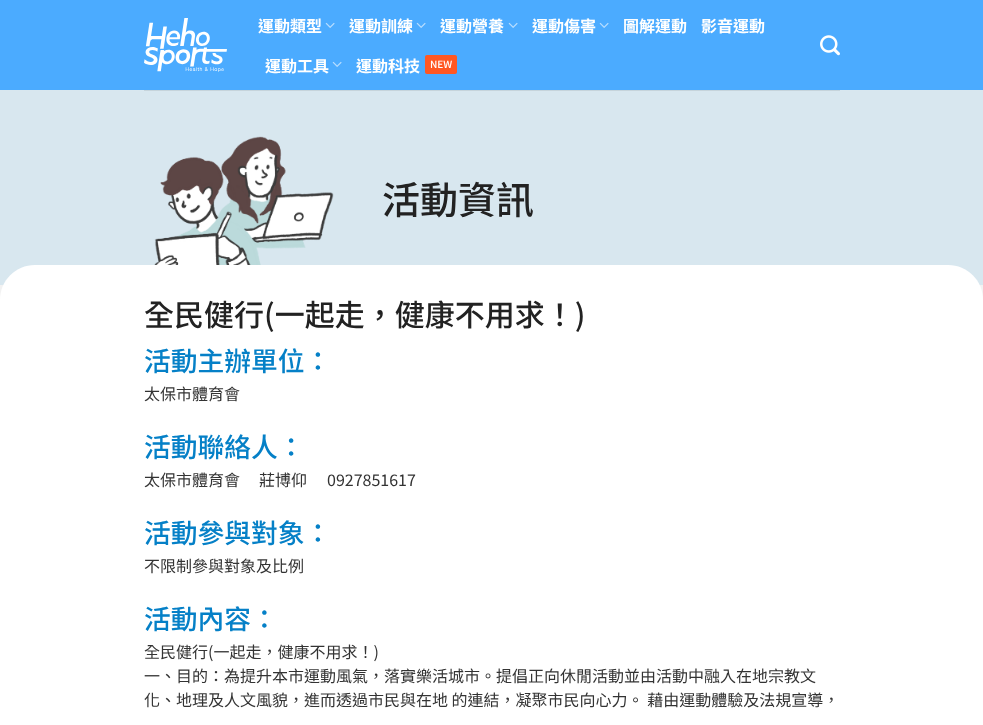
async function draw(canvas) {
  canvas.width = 983
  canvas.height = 725
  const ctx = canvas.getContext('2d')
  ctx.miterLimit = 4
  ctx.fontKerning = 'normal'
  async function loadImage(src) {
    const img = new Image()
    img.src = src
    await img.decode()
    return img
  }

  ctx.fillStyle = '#f2f2f2'
  ctx.fillRect(0, 0, 983, 725)
  ctx.fillStyle = '#4babff'
  ctx.fillRect(0, 0, 983, 90)
  ctx.drawImage(await loadImage('image0.png'), 144, 18, 83, 54)
  ctx.font = 'bold 16px Noto Sans TC'
  ctx.fillStyle = '#fff'
  ctx.fillText('運動類型', 258, 32)
  ctx.drawImage(await loadImage('image1.png'), 325, 22, 10, 6)
  ctx.fillText('運動訓練', 349, 32)
  ctx.drawImage(await loadImage('image1.png'), 416, 22, 10, 6)
  ctx.fillText('運動營養', 440, 32)
  ctx.drawImage(await loadImage('image1.png'), 508, 22, 10, 6)
  ctx.fillText('運動傷害', 532, 32)
  ctx.drawImage(await loadImage('image1.png'), 599, 22, 10, 6)
  ctx.fillText('圖解運動', 623, 32)
  ctx.fillText('影音運動', 701, 32)
  ctx.fillText('運動工具', 265, 72)
  ctx.drawImage(await loadImage('image1.png'), 332, 61, 10, 6)
  ctx.fillText('運動科技', 356, 72)
  ctx.fillStyle = '#ff5722'
  ctx.beginPath()
  ctx.roundRect(425, 55, 32, 19, 2)
  ctx.fill()
  ctx.font = '500 10px Noto Sans TC'
  ctx.fillStyle = '#fff'
  ctx.fillText('NEW', 430, 68)
  ctx.drawImage(await loadImage('image2.png'), 820, 35, 20, 21)
  ctx.fillStyle = '#d8e7ef'
  ctx.fillRect(0, 90, 983, 195)
  ctx.fillStyle = '#c6d4db'
  ctx.fillRect(144, 90, 696, 1)
  ctx.drawImage(await loadImage('image3.png'), 154, 136, 180, 129)
  ctx.font = '500 38px Noto Sans TC'
  ctx.fillStyle = '#222'
  ctx.fillText('活動資訊', 382, 214)
  ctx.fillStyle = '#fff'
  ctx.beginPath()
  ctx.moveTo(35, 265)
  ctx.lineTo(948, 265)
  ctx.bezierCurveTo(967.5, 265, 983, 280.5, 983, 300)
  ctx.lineTo(983, 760)
  ctx.lineTo(0, 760)
  ctx.lineTo(0, 300)
  ctx.bezierCurveTo(0, 280.5, 15.5, 265, 35, 265)
  ctx.closePath()
  ctx.fill()
  ctx.font = '500 30px Noto Sans TC'
  ctx.fillStyle = '#222'
  ctx.fillText('全民健行(一起走，健康不用求！)', 144, 326)
  ctx.font = '500 26.75px Noto Sans TC'
  ctx.fillStyle = '#0580c7'
  ctx.fillText('活動主辦單位：', 144, 371)
  ctx.font = '16px Noto Sans TC'
  ctx.fillStyle = '#333'
  ctx.fillText('太保市體育會', 144, 400)
  ctx.font = '500 26.75px Noto Sans TC'
  ctx.fillStyle = '#0580c7'
  ctx.fillText('活動聯絡人：', 144, 457)
  ctx.font = '16px Noto Sans TC'
  ctx.fillStyle = '#333'
  ctx.fillText('太保市體育會', 144, 486)
  ctx.fillText('莊博仰', 259, 486)
  ctx.fillText('0927851617', 327, 486)
  ctx.font = '500 26.75px Noto Sans TC'
  ctx.fillStyle = '#0580c7'
  ctx.fillText('活動參與對象：', 144, 543)
  ctx.font = '16px Noto Sans TC'
  ctx.fillStyle = '#333'
  ctx.fillText('不限制參與對象及比例', 144, 572)
  ctx.font = '500 26.75px Noto Sans TC'
  ctx.fillStyle = '#0580c7'
  ctx.fillText('活動內容：', 144, 629)
  ctx.font = '16px Noto Sans TC'
  ctx.fillStyle = '#333'
  ctx.fillText('全民健行(一起走，健康不用求！)', 144, 658)
  ctx.fillText('一、目的：為提升本市運動風氣，落實樂活城市。提倡正向休閒活動並由活動中融入在地宗教文', 144, 682)
  ctx.fillText('化、地理及人文風貌，進而透過市民與在地 的連結，凝聚市民向心力。 藉由運動體驗及法規宣導，', 144, 706)
}

draw(document.querySelector('canvas'))
